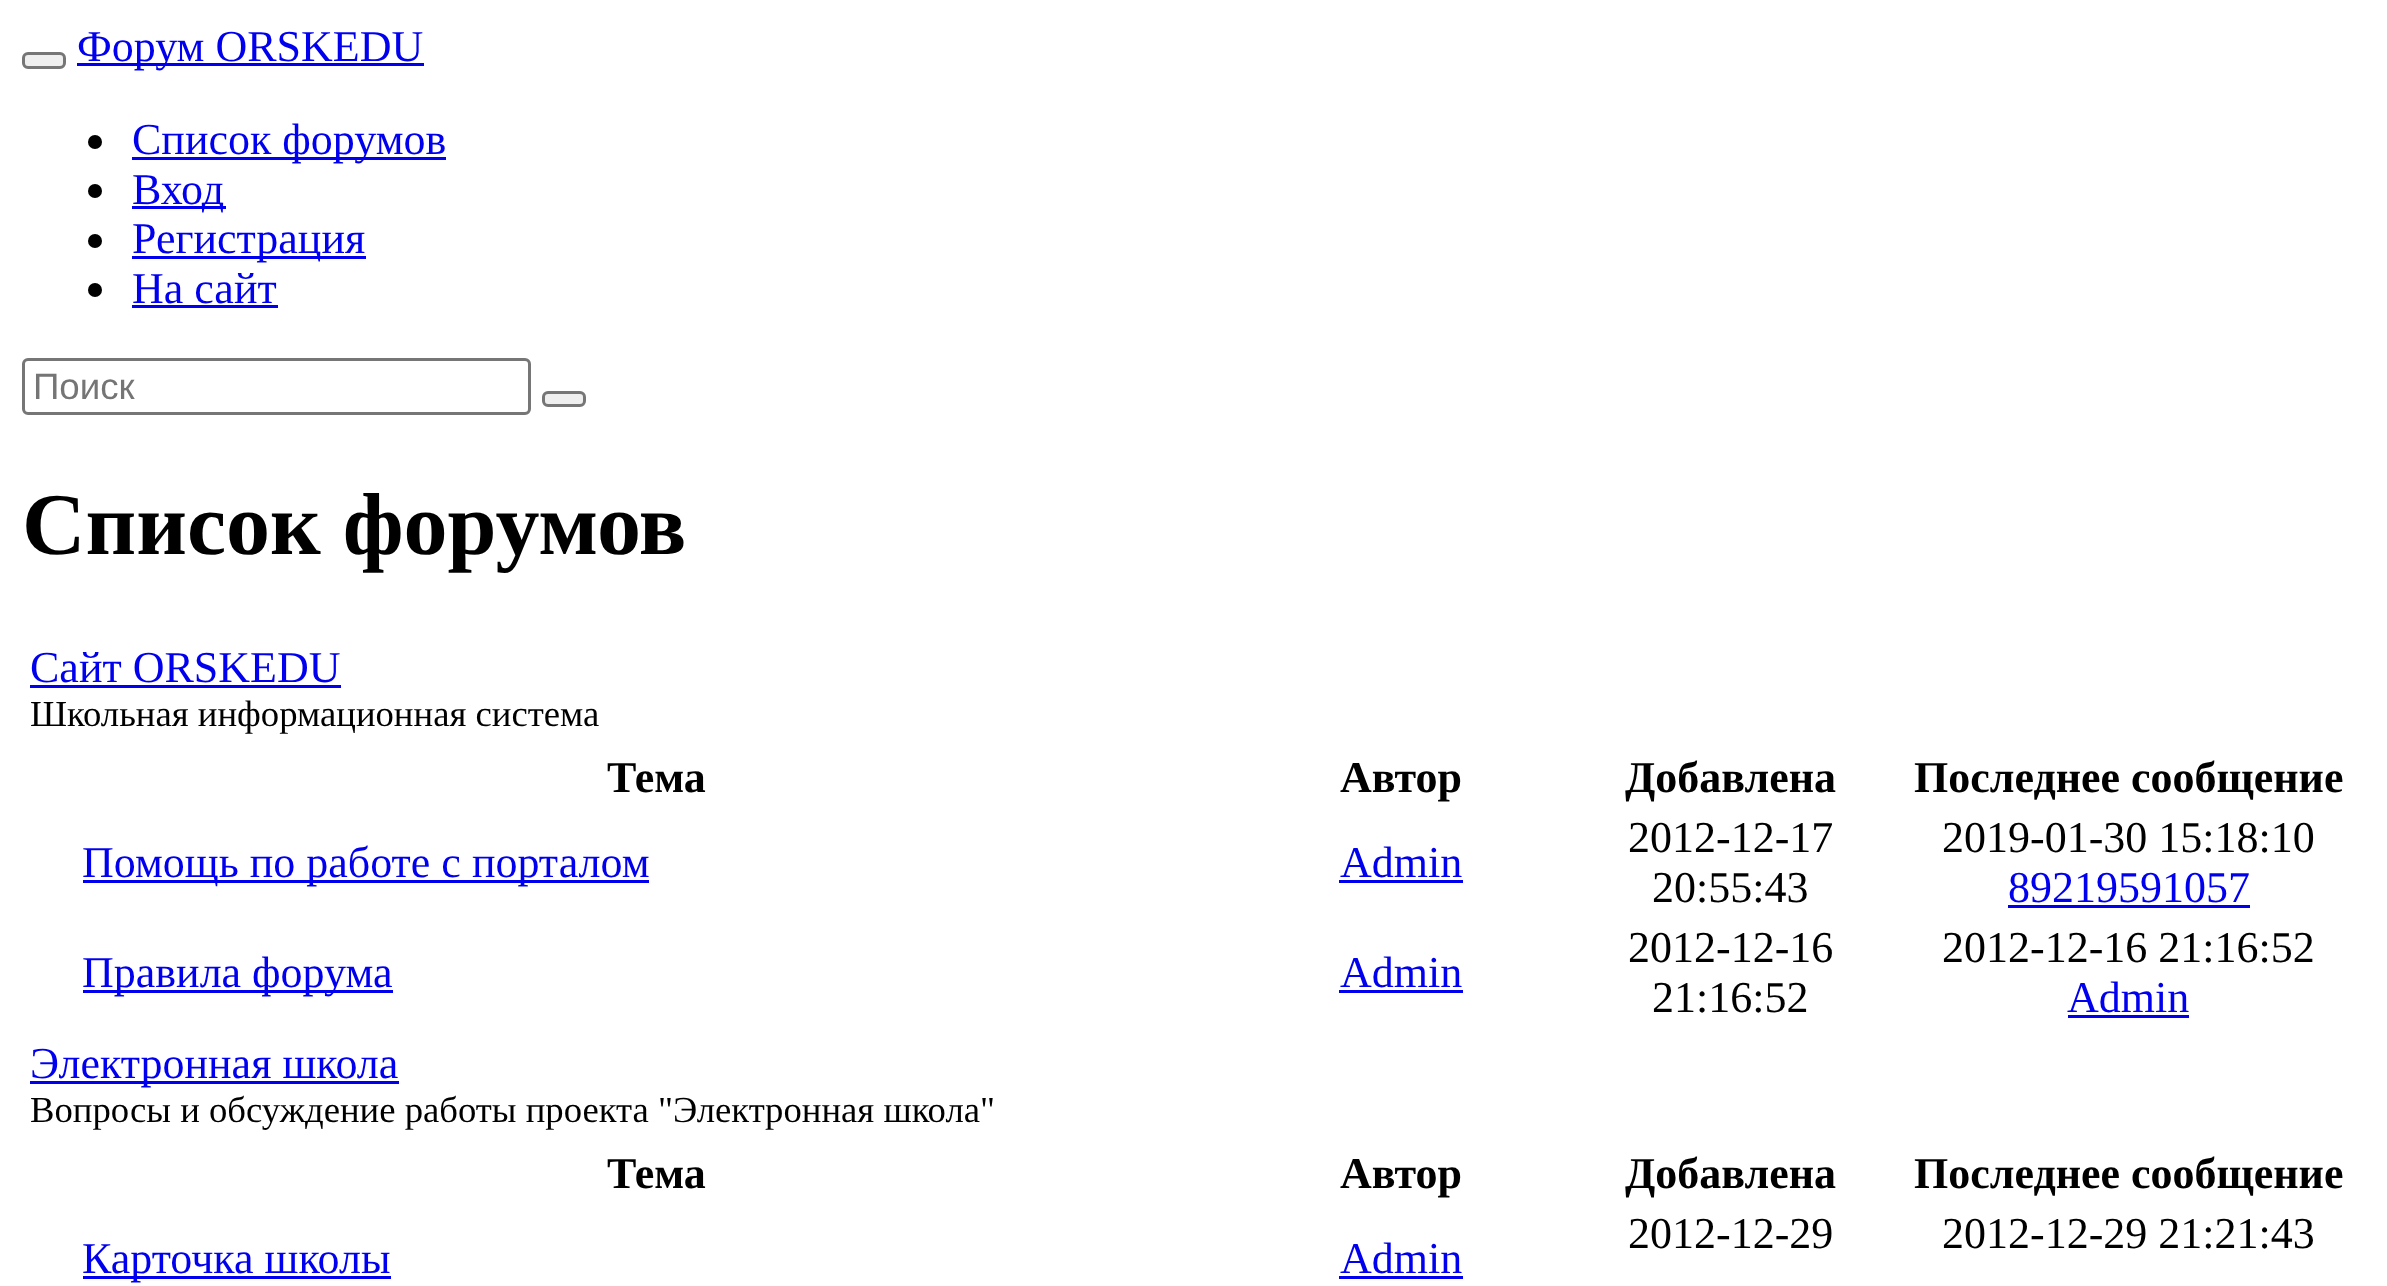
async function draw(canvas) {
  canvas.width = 2387
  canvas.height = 1286
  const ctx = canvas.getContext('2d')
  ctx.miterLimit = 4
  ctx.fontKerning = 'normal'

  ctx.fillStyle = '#fff'
  ctx.fillRect(0, 0, 2387, 1286)
  ctx.fillStyle = '#efefef'
  ctx.beginPath()
  ctx.roundRect(23.5, 53.5, 41, 14, 4.5)
  ctx.fill()
  ctx.strokeStyle = '#767676'
  ctx.lineWidth = 3
  ctx.stroke()
  ctx.fillStyle = '#00e'
  ctx.fillRect(77, 63, 347, 3)
  ctx.font = '44px Liberation Serif'
  ctx.fillText('Форум ORSKEDU', 77, 61)
  ctx.fillStyle = '#000'
  ctx.beginPath()
  ctx.arc(95, 142, 7, 0, 2 * Math.PI)
  ctx.fill()
  ctx.fillStyle = '#00e'
  ctx.fillRect(132, 157, 314, 3)
  ctx.fillText('Список форумов', 132, 154)
  ctx.fillStyle = '#000'
  ctx.beginPath()
  ctx.arc(95, 191, 7, 0, 2 * Math.PI)
  ctx.fill()
  ctx.fillStyle = '#00e'
  ctx.fillRect(132, 206, 94, 3)
  ctx.fillText('Вход', 132, 204)
  ctx.fillStyle = '#000'
  ctx.beginPath()
  ctx.arc(95, 241, 7, 0, 2 * Math.PI)
  ctx.fill()
  ctx.fillStyle = '#00e'
  ctx.fillRect(132, 256, 234, 3)
  ctx.fillText('Регистрация', 132, 253)
  ctx.fillStyle = '#000'
  ctx.beginPath()
  ctx.arc(95, 290, 7, 0, 2 * Math.PI)
  ctx.fill()
  ctx.fillStyle = '#00e'
  ctx.fillText('На сайт', 132, 303)
  ctx.fillRect(132, 305, 146, 3)
  ctx.beginPath()
  ctx.roundRect(23.5, 359.5, 506, 54, 4.5)
  ctx.stroke()
  ctx.font = '36.7px Liberation Sans'
  ctx.fillStyle = '#757575'
  ctx.fillText('Поиск', 33, 399)
  ctx.fillStyle = '#efefef'
  ctx.beginPath()
  ctx.roundRect(543.5, 392.5, 41, 13, 4.5)
  ctx.fill()
  ctx.stroke()
  ctx.font = 'bold 88px Liberation Serif'
  ctx.fillStyle = '#000'
  ctx.fillText('Список форумов', 22, 554)
  ctx.font = '44px Liberation Serif'
  ctx.fillStyle = '#00e'
  ctx.fillText('Сайт ORSKEDU', 30, 682)
  ctx.fillRect(30, 685, 311, 3)
  ctx.font = '36.7px Liberation Serif'
  ctx.fillStyle = '#000'
  ctx.fillText('Школьная информационная система', 30, 726)
  ctx.font = 'bold 44px Liberation Serif'
  ctx.fillText('Тема', 607, 792)
  ctx.fillText('Автор', 1340, 792)
  ctx.fillText('Добавлена', 1625, 792)
  ctx.fillText('Последнее сообщение', 1914, 792)
  ctx.fillStyle = '#00e'
  ctx.fillRect(83, 880, 566, 3)
  ctx.font = '44px Liberation Serif'
  ctx.fillText('Помощь по работе с порталом', 82, 877)
  ctx.fillText('Admin', 1340, 877)
  ctx.fillRect(1339, 880, 124, 3)
  ctx.fillStyle = '#000'
  ctx.fillText('2012-12-17', 1628, 852)
  ctx.fillText('20:55:43', 1652, 902)
  ctx.fillText('2019-01-30 15:18:10', 1942, 852)
  ctx.fillStyle = '#00e'
  ctx.fillText('89219591057', 2008, 902)
  ctx.fillRect(2008, 905, 242, 3)
  ctx.fillRect(83, 990, 310, 3)
  ctx.fillText('Правила форума', 82, 987)
  ctx.fillText('Admin', 1340, 987)
  ctx.fillRect(1339, 990, 124, 3)
  ctx.fillStyle = '#000'
  ctx.fillText('2012-12-16', 1628, 962)
  ctx.fillText('21:16:52', 1652, 1012)
  ctx.fillText('2012-12-16 21:16:52', 1942, 962)
  ctx.fillStyle = '#00e'
  ctx.fillText('Admin', 2067, 1012)
  ctx.fillRect(2068, 1015, 121, 3)
  ctx.fillRect(30, 1081, 369, 3)
  ctx.fillText('Электронная школа', 30, 1078)
  ctx.font = '36.7px Liberation Serif'
  ctx.fillStyle = '#000'
  ctx.fillText('Вопросы и обсуждение работы проекта "Электронная школа"', 30, 1122)
  ctx.font = 'bold 44px Liberation Serif'
  ctx.fillText('Тема', 607, 1188)
  ctx.fillText('Автор', 1340, 1188)
  ctx.fillText('Добавлена', 1625, 1188)
  ctx.fillText('Последнее сообщение', 1914, 1188)
  ctx.font = '44px Liberation Serif'
  ctx.fillText('2012-12-29', 1628, 1248)
  ctx.fillText('2012-12-29 21:21:43', 1942, 1248)
  ctx.fillStyle = '#00e'
  ctx.fillRect(83, 1276, 308, 3)
  ctx.fillText('Карточка школы', 82, 1273)
  ctx.fillText('Admin', 1340, 1273)
  ctx.fillRect(1339, 1276, 124, 3)
}

draw(document.querySelector('canvas'))
